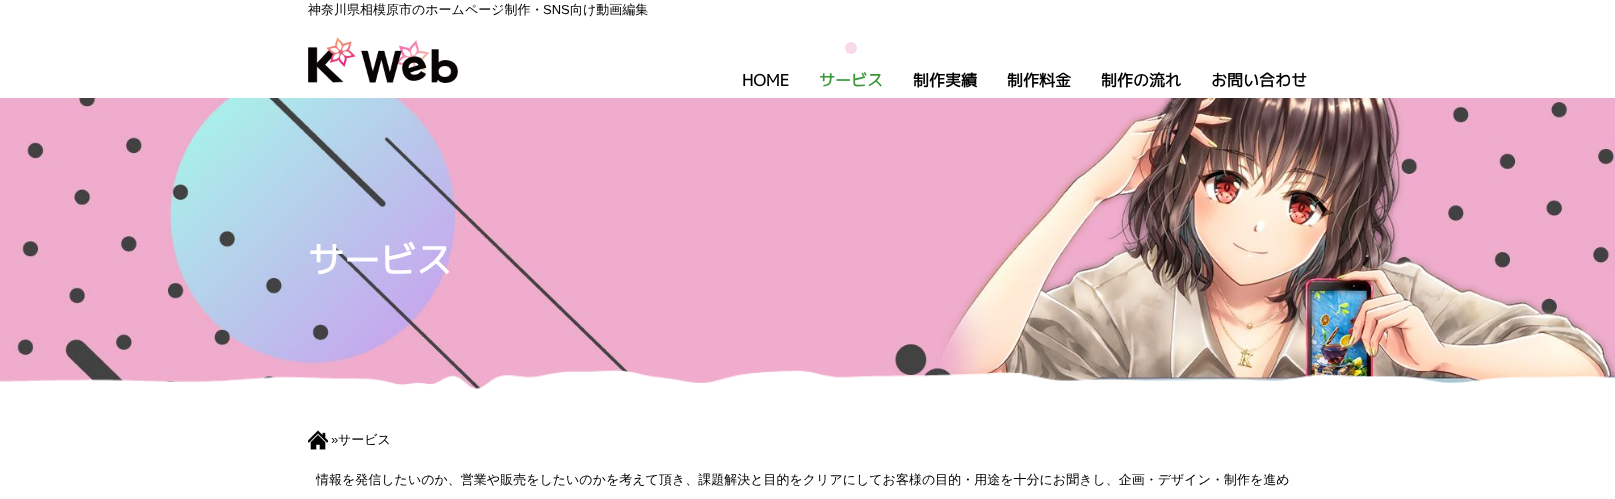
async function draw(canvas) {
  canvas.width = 1615
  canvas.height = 499
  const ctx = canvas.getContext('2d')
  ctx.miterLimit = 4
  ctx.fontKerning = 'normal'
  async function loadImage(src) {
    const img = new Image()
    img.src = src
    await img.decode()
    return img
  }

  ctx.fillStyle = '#fff'
  ctx.fillRect(0, 0, 1615, 499)
  ctx.font = '500 13px WenQuanYi Zen Hei'
  ctx.fillStyle = '#000'
  ctx.fillText('神奈川県相模原市のホームページ制作・', 308, 14)
  ctx.font = '13px Liberation Sans'
  ctx.fillText('SNS', 543, 14)
  ctx.font = '500 13px WenQuanYi Zen Hei'
  ctx.fillText('向け動画編集', 570, 14)
  ctx.drawImage(await loadImage('image0.png'), 308, 37, 150, 46)
  ctx.font = 'bold 16px "M PLUS 1p"'
  ctx.fillText('HOME', 742, 86)
  ctx.fillStyle = '#f7d9e7'
  ctx.beginPath()
  ctx.arc(851, 48, 6, 0, 2 * Math.PI)
  ctx.fill()
  ctx.fillStyle = '#389738'
  ctx.fillText('サービス', 819, 86)
  ctx.fillStyle = '#000'
  ctx.fillText('制作実績', 913, 86)
  ctx.fillText('制作料金', 1007, 86)
  ctx.fillText('制作の流れ', 1101, 86)
  ctx.fillText('お問い合わせ', 1211, 86)
  ctx.drawImage(await loadImage('image1.png'), 0, 98, 1615, 292)
  ctx.font = 'bold 36px "M PLUS 1p"'
  ctx.fillStyle = '#fff'
  ctx.fillText('サービス', 308, 273)
  ctx.drawImage(await loadImage('image2.png'), 0, 369, 1615, 52)
  ctx.drawImage(await loadImage('image3.png'), 308, 430, 20, 20)
  ctx.font = '13px Liberation Sans'
  ctx.fillStyle = '#000'
  ctx.fillText('»', 331, 444)
  ctx.font = '500 13px WenQuanYi Zen Hei'
  ctx.fillText('サービス', 338, 444)
  ctx.fillText('情報を発信したいのか、営業や販売をしたいのかを考えて頂き、課題解決と目的をクリアにしてお客様の目的・用途を十分にお聞きし、企画・デザイン・制作を進め', 316, 484)
}

draw(document.querySelector('canvas'))
